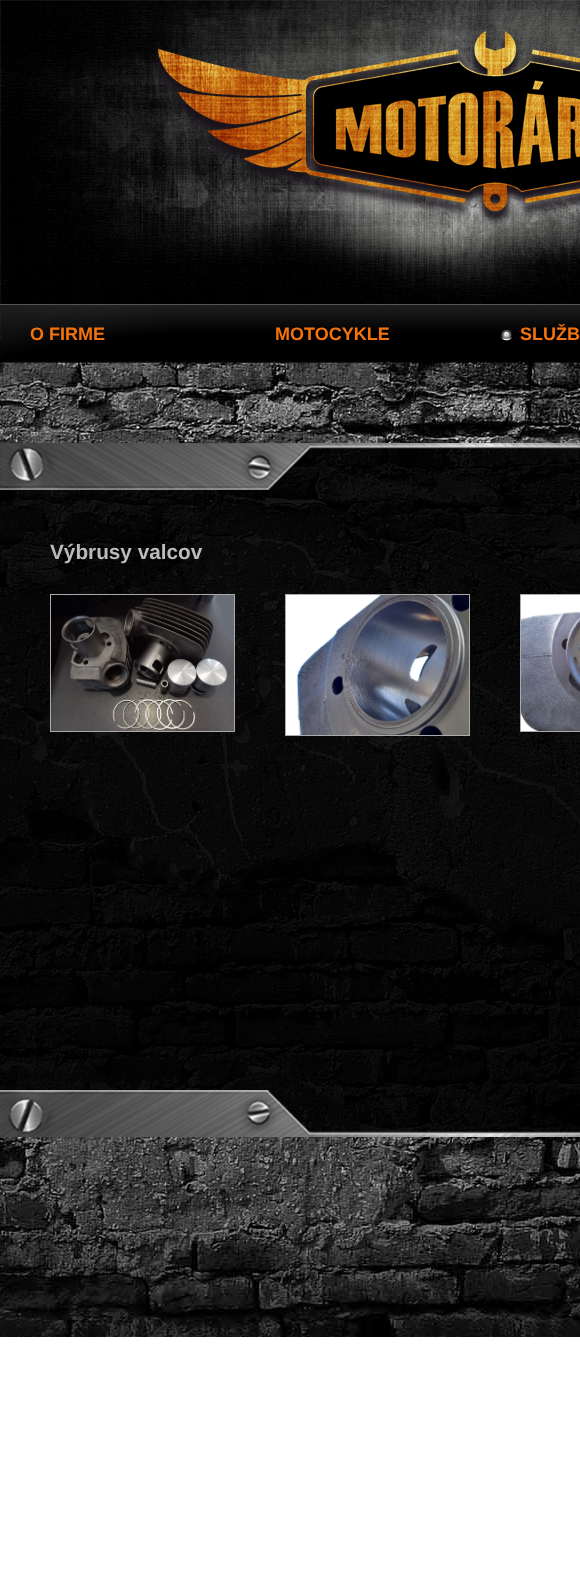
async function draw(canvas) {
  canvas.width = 580
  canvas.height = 1574
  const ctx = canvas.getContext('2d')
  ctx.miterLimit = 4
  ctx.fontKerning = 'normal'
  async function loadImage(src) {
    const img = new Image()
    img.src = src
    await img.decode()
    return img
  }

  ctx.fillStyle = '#fff'
  ctx.fillRect(0, 0, 580, 1574)
  ctx.drawImage(await loadImage('image0.png'), 0, 305, 580, 1032)
  ctx.drawImage(await loadImage('image1.png'), 0, 0, 580, 305)
  ctx.drawImage(await loadImage('image2.png'), 155, 31, 425, 194)
  ctx.drawImage(await loadImage('image3.png'), 0, 305, 580, 58)
  ctx.font = 'bold 18px Liberation Sans'
  ctx.fillStyle = '#f5730c'
  ctx.fillText('O FIRME', 30, 340)
  ctx.fillText('MOTOCYKLE', 275, 340)
  ctx.drawImage(await loadImage('image4.png'), 500, 329, 13, 12)
  ctx.fillText('SLUŽB', 520, 340)
  ctx.fillStyle = '#000000e6'
  ctx.fillRect(0, 443, 580, 691)
  ctx.drawImage(await loadImage('image5.png'), 0, 443, 580, 47)
  ctx.font = 'bold 20.75px Liberation Sans'
  ctx.fillStyle = '#bbb'
  ctx.fillText('Výbrusy valcov', 50, 559)
  ctx.strokeStyle = '#aaa'
  ctx.strokeRect(50.5, 594.5, 184, 137)
  ctx.drawImage(await loadImage('image6.png'), 51, 595, 183, 136)
  ctx.strokeRect(285.5, 594.5, 184, 141)
  ctx.drawImage(await loadImage('image7.png'), 286, 595, 183, 140)
  ctx.strokeRect(520.5, 594.5, 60, 137)
  ctx.drawImage(await loadImage('image8.png'), 521, 595, 59, 136)
  ctx.drawImage(await loadImage('image9.png'), 0, 1090, 580, 47)
}

draw(document.querySelector('canvas'))
